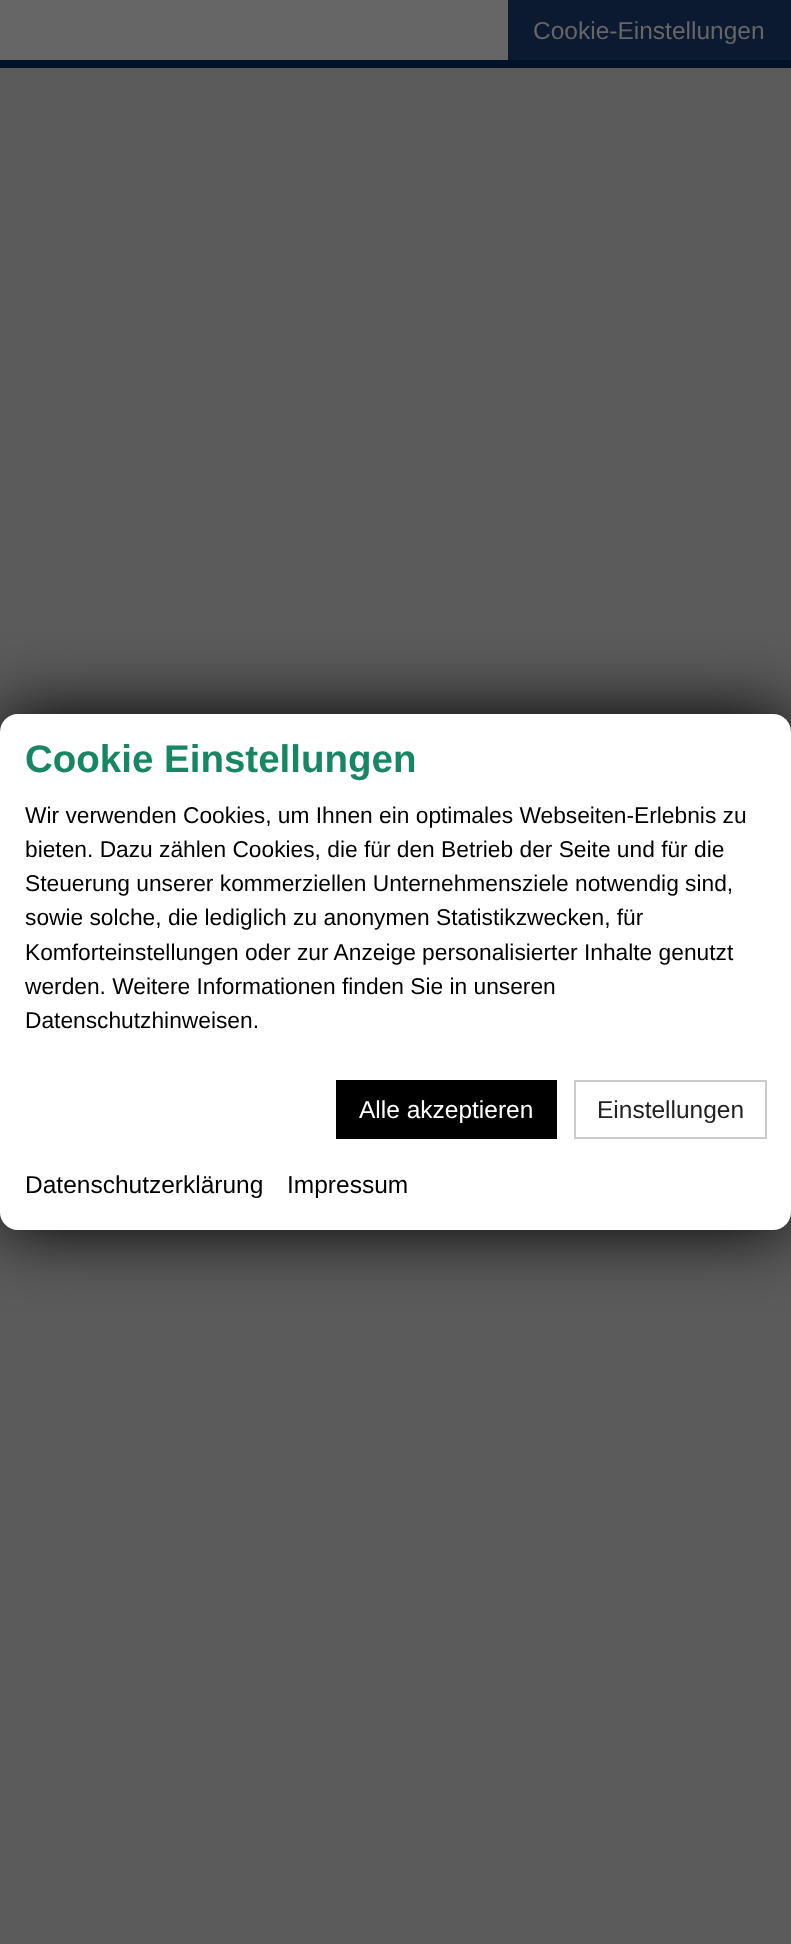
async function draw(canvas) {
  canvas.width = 791
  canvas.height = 1944
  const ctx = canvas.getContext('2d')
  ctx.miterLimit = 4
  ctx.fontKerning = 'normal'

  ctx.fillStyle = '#5b5b5b'
  ctx.fillRect(0, 0, 791, 1944)
  ctx.fillStyle = '#666'
  ctx.fillRect(0, 0, 508, 60)
  ctx.fillStyle = '#001328'
  ctx.fillRect(0, 60, 791, 8)
  ctx.fillStyle = '#0c1a31'
  ctx.fillRect(508, 0, 283, 60)
  ctx.font = '24.5px Liberation Sans'
  ctx.fillStyle = '#666'
  ctx.fillText('Cookie-Einstellungen', 533, 39)
  ctx.fillStyle = '#000'
  ctx.filter = 'blur(35px)'
  ctx.beginPath()
  ctx.roundRect(0, 714, 791, 516, 18)
  ctx.fill()
  ctx.filter = 'none'
  ctx.fillStyle = '#fff'
  ctx.beginPath()
  ctx.roundRect(0, 714, 791, 516, 18)
  ctx.fill()
  ctx.font = 'bold 38.5px Liberation Sans'
  ctx.fillStyle = '#188665'
  ctx.fillText('Cookie Einstellungen', 25, 772)
  ctx.font = '22.75px Liberation Sans'
  ctx.fillStyle = '#000'
  ctx.fillText('Wir verwenden Cookies, um Ihnen ein optimales Webseiten-Erlebnis zu', 25, 823)
  ctx.fillText('bieten. Dazu zählen Cookies, die für den Betrieb der Seite und für die', 25, 857)
  ctx.fillText('Steuerung unserer kommerziellen Unternehmensziele notwendig sind,', 25, 891)
  ctx.fillText('sowie solche, die lediglich zu anonymen Statistikzwecken, für', 25, 925)
  ctx.fillText('Komforteinstellungen oder zur Anzeige personalisierter Inhalte genutzt', 25, 960)
  ctx.fillText('werden. Weitere Informationen finden Sie in unseren', 25, 994)
  ctx.fillText('Datenschutzhinweisen.', 25, 1028)
  ctx.fillRect(336, 1080, 221, 59)
  ctx.font = '24.5px Liberation Sans'
  ctx.fillStyle = '#fff'
  ctx.fillText('Alle akzeptieren', 359, 1118)
  ctx.strokeStyle = '#ccc'
  ctx.lineWidth = 2
  ctx.strokeRect(575, 1081, 191, 57)
  ctx.fillStyle = '#222'
  ctx.fillText('Einstellungen', 597, 1118)
  ctx.fillStyle = '#000'
  ctx.fillText('Datenschutzerklärung', 25, 1193)
  ctx.fillText('Impressum', 287, 1193)
}

draw(document.querySelector('canvas'))
